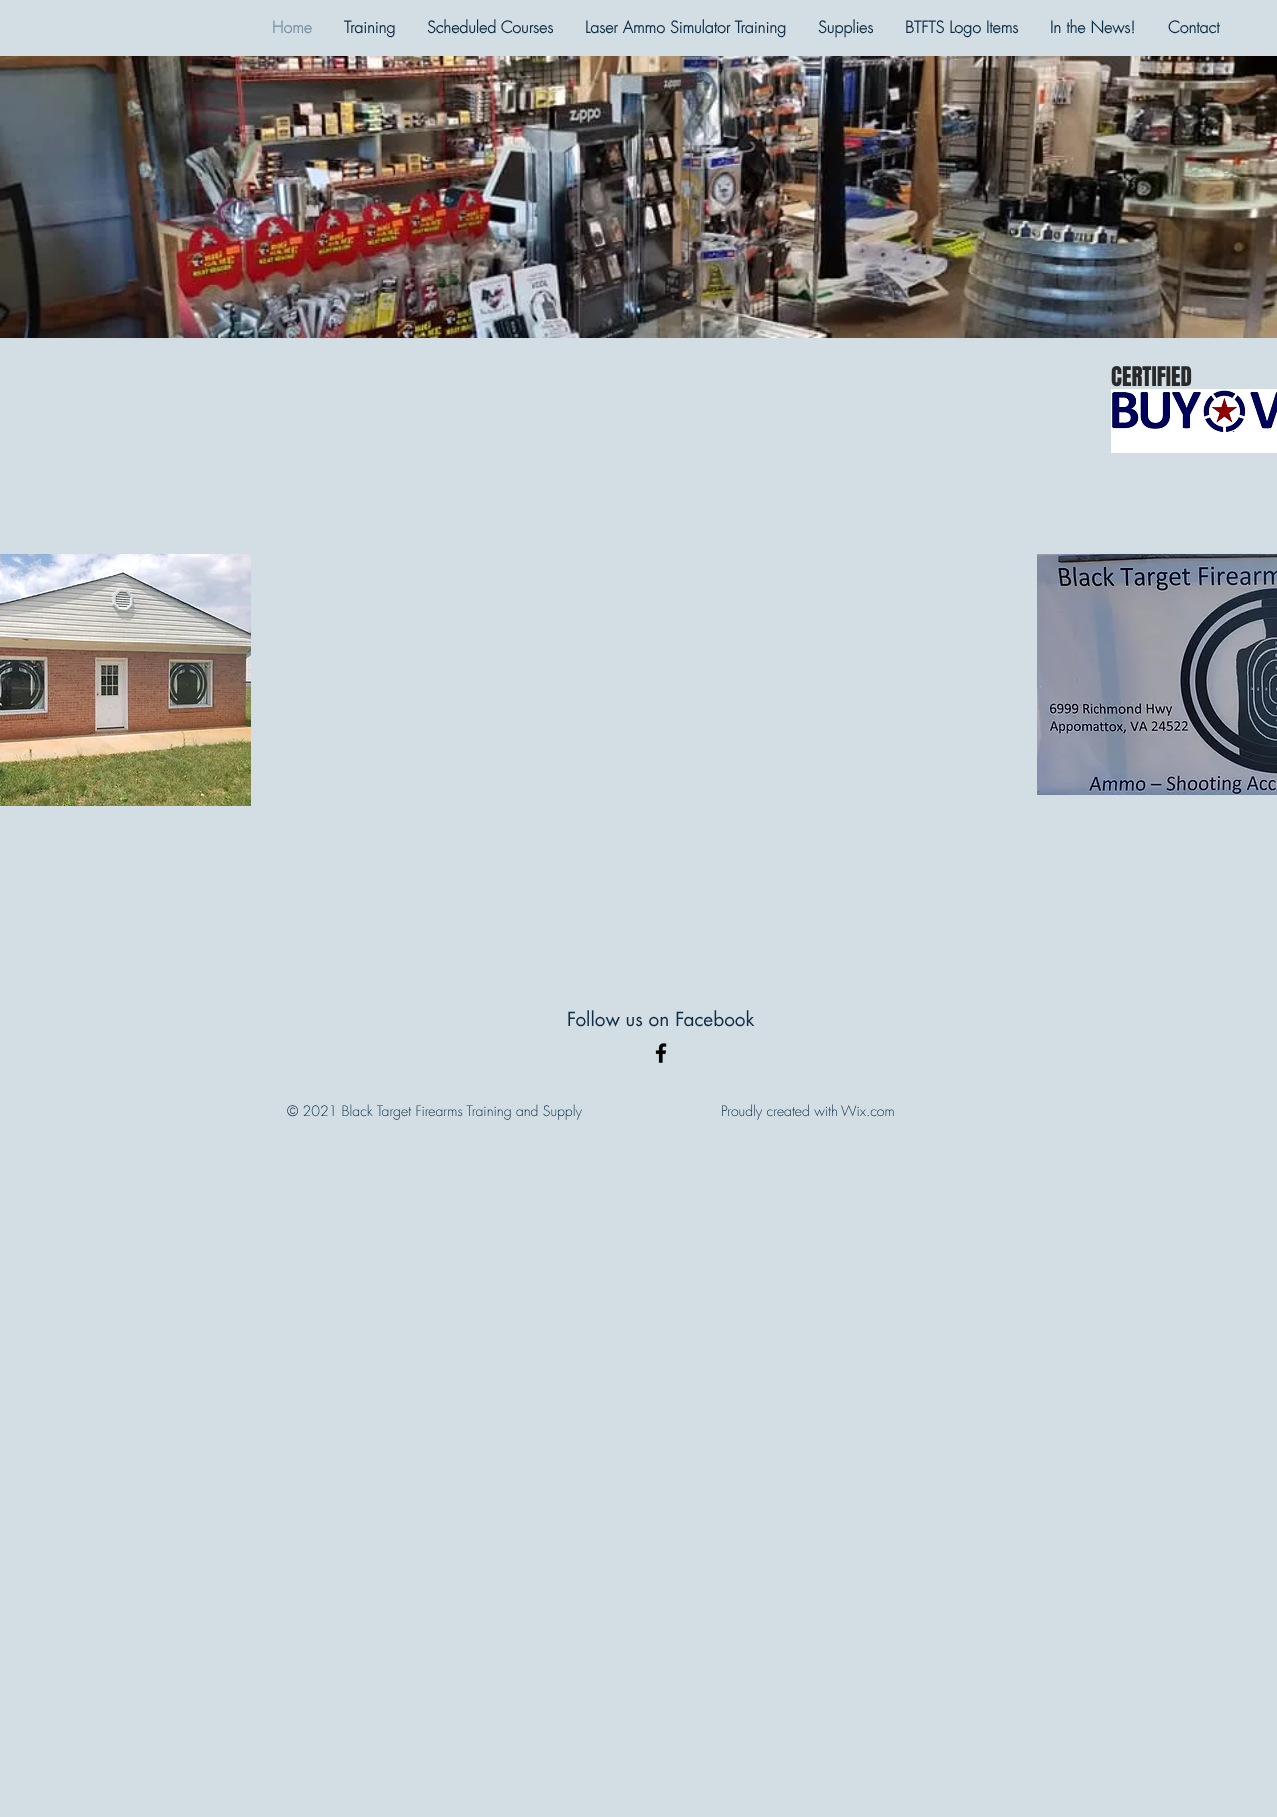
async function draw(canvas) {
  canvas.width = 1277
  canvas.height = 1817
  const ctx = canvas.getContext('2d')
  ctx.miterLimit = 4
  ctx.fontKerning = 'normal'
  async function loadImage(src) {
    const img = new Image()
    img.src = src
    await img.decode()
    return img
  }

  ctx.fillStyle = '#d2dee3'
  ctx.fillRect(0, 0, 1277, 1817)
  ctx.font = 'bold 16px futura'
  ctx.fillStyle = '#7890a3'
  ctx.fillText('Home', 272, 33)
  ctx.fillStyle = '#0e2e47'
  ctx.fillText('Training', 344, 33)
  ctx.fillText('Scheduled Courses', 427, 33)
  ctx.fillText('Laser Ammo Simulator Training', 585, 33)
  ctx.fillText('Supplies', 818, 33)
  ctx.fillText('BTFTS Logo Items', 905, 33)
  ctx.fillText('In the News!', 1050, 33)
  ctx.fillText('Contact', 1168, 33)
  ctx.drawImage(await loadImage('image0.png'), 0, 56, 1277, 282)
  ctx.font = '23px Anton'
  ctx.fillStyle = '#292929'
  ctx.fillText('CERTIFIED', 1111, 386)
  ctx.drawImage(await loadImage('image1.png'), 1111, 389, 166, 64)
  ctx.drawImage(await loadImage('image2.png'), 0, 554, 251, 252)
  ctx.drawImage(await loadImage('image3.png'), 1037, 554, 240, 241)
  ctx.font = '19px futura'
  ctx.fillStyle = '#0e2e47'
  ctx.fillText('Follow us on Facebook', 567, 1026)
  ctx.drawImage(await loadImage('image4.png'), 655, 1043, 12, 20)
  ctx.font = '300 14px futura'
  ctx.fillText('© 2021 Black Target Firearms Training and Supply', 287, 1116)
  ctx.fillText('Proudly created with', 721, 1116)
  ctx.fillText('Wix.com', 841, 1116)
}

draw(document.querySelector('canvas'))
